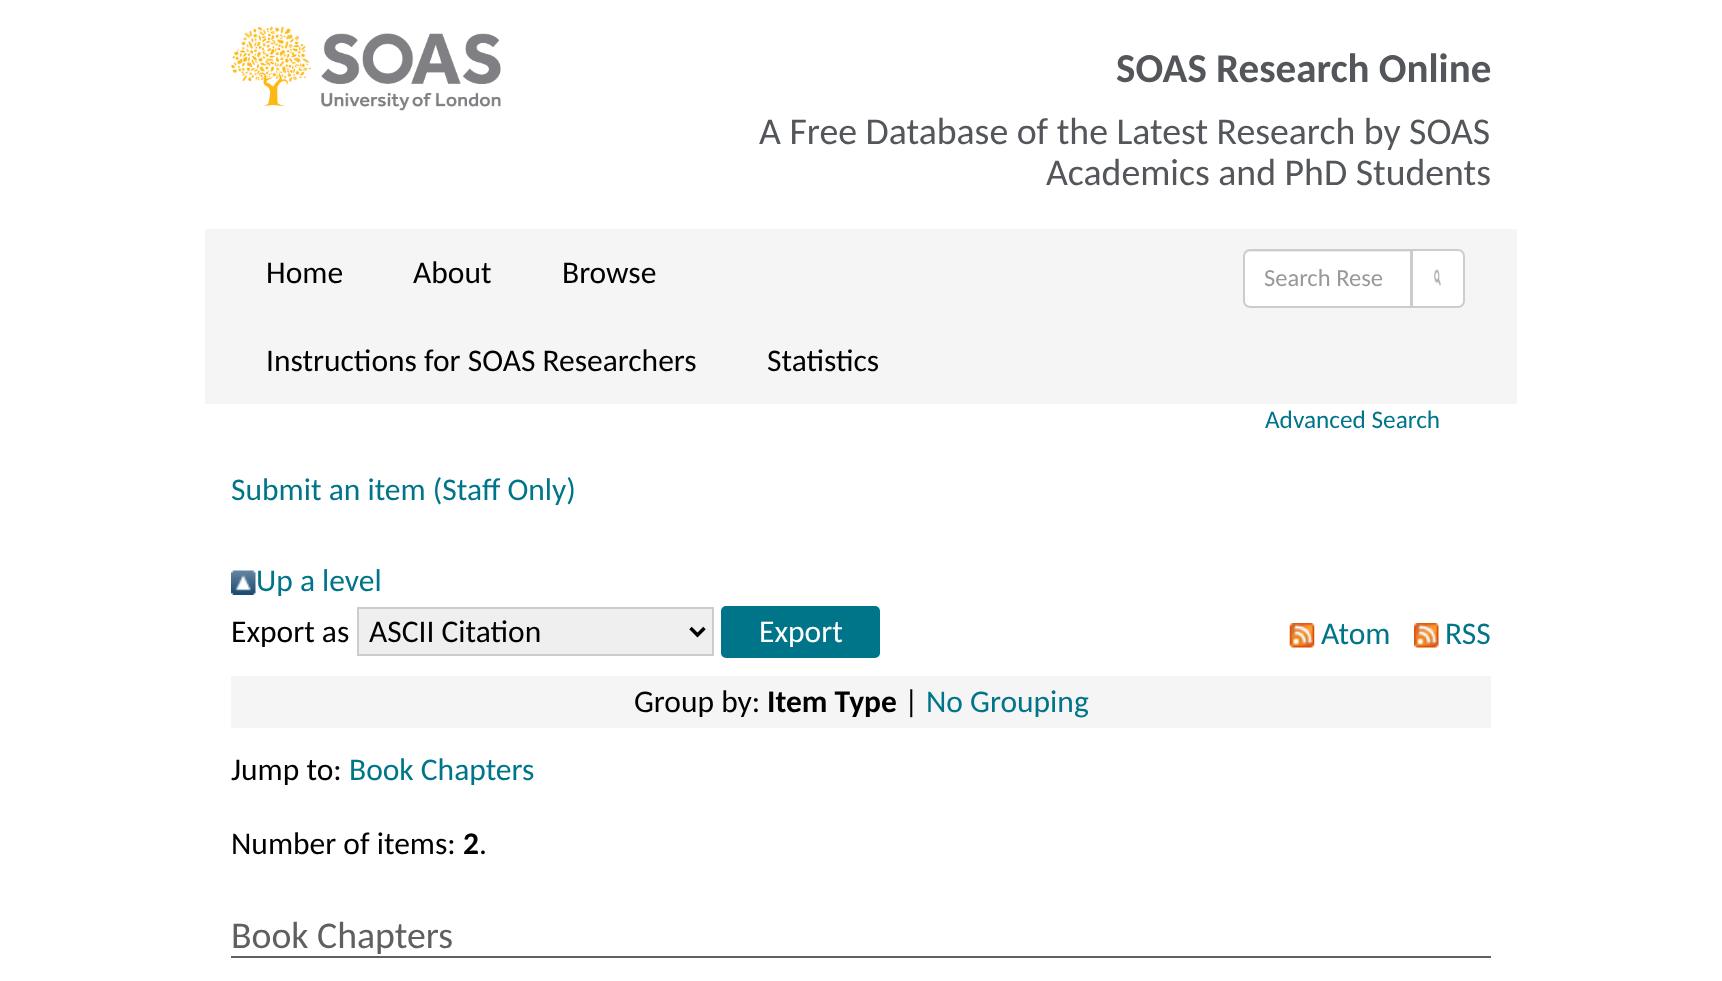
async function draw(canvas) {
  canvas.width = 1722
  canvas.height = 981
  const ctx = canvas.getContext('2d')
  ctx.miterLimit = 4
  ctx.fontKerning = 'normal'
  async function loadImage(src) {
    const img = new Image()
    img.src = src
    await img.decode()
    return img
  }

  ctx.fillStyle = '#fff'
  ctx.fillRect(0, 0, 1722, 981)
  ctx.drawImage(await loadImage('image0.png'), 231, 26, 270, 85)
  ctx.font = 'bold 41px Carlito'
  ctx.fillStyle = '#53565a'
  ctx.fillText('SOAS Research Online', 1116, 82)
  ctx.font = '37.75px Carlito'
  ctx.fillText('A Free Database of the Latest Research by SOAS', 759, 144)
  ctx.fillText('Academics and PhD Students', 1046, 185)
  ctx.fillStyle = '#f5f5f5'
  ctx.fillRect(205, 229, 1312, 175)
  ctx.font = '31.5px Carlito'
  ctx.fillStyle = '#000'
  ctx.fillText('Home', 266, 283)
  ctx.fillText('About', 413, 283)
  ctx.fillText('Browse', 562, 283)
  ctx.fillText('Instructions for SOAS Researchers', 266, 371)
  ctx.fillText('Statistics', 767, 371)
  ctx.fillStyle = '#fff'
  ctx.beginPath()
  ctx.roundRect(1243, 249, 169, 59, [7, 0, 0, 7])
  ctx.fill()
  ctx.fillStyle = '#ececec'
  ctx.beginPath()
  ctx.moveTo(1250, 252)
  ctx.lineTo(1410, 252)
  ctx.lineTo(1410, 306)
  ctx.lineTo(1411, 306)
  ctx.lineTo(1411, 250)
  ctx.lineTo(1249, 250)
  ctx.bezierCurveTo(1246, 250, 1244, 252, 1244, 255)
  ctx.lineTo(1244, 257)
  ctx.bezierCurveTo(1244, 254, 1247, 252, 1250, 252)
  ctx.closePath()
  ctx.fill()
  ctx.beginPath()
  ctx.roundRect(1244, 250, 167, 57, [6, 0, 0, 6])
  ctx.strokeStyle = '#ccc'
  ctx.lineWidth = 2
  ctx.stroke()
  ctx.font = '24.5px Carlito'
  ctx.fillStyle = '#999'
  ctx.fillText('Search Rese', 1264, 286)
  ctx.fillStyle = '#fff'
  ctx.beginPath()
  ctx.roundRect(1412, 250, 52, 57, [0, 6, 6, 0])
  ctx.fill()
  ctx.stroke()
  ctx.drawImage(await loadImage('image1.png'), 1434, 269, 7, 17)
  ctx.font = '25.25px Carlito'
  ctx.fillStyle = '#00758a'
  ctx.fillText('Advanced Search', 1265, 428)
  ctx.font = '31.5px Carlito'
  ctx.fillText('Submit an item (Staff Only)', 231, 500)
  ctx.drawImage(await loadImage('image2.png'), 231, 570, 25, 25)
  ctx.fillText('Up a level', 256, 591)
  ctx.fillStyle = '#000'
  ctx.fillText('Export as', 231, 642)
  ctx.fillStyle = '#efefef'
  ctx.beginPath()
  ctx.rect(358, 608, 355, 47)
  ctx.fill()
  ctx.stroke()
  ctx.beginPath()
  ctx.moveTo(690.5, 628)
  ctx.lineTo(697.5, 635)
  ctx.lineTo(704.5, 628)
  ctx.strokeStyle = '#000'
  ctx.lineWidth = 3.5
  ctx.stroke()
  ctx.fillStyle = '#000'
  ctx.fillText('ASCII Citation', 369, 642)
  ctx.fillStyle = '#00758a'
  ctx.beginPath()
  ctx.roundRect(723, 608, 155, 48, 3)
  ctx.fill()
  ctx.strokeStyle = '#00758a'
  ctx.lineWidth = 4
  ctx.stroke()
  ctx.fillStyle = '#fff'
  ctx.fillText('Export', 759, 642)
  ctx.drawImage(await loadImage('image3.png'), 1289, 623, 26, 25)
  ctx.fillStyle = '#00758a'
  ctx.fillText('Atom', 1321, 644)
  ctx.drawImage(await loadImage('image4.png'), 1414, 623, 25, 25)
  ctx.fillText('RSS', 1445, 644)
  ctx.fillStyle = '#f5f5f5'
  ctx.fillRect(231, 676, 1260, 52)
  ctx.fillStyle = '#000'
  ctx.fillText('Group by:', 634, 712)
  ctx.font = 'bold 31.5px Carlito'
  ctx.fillText('Item Type', 767, 712)
  ctx.font = '31.5px Carlito'
  ctx.fillText('|', 904, 712)
  ctx.fillStyle = '#00758a'
  ctx.fillText('No Grouping', 926, 712)
  ctx.fillStyle = '#000'
  ctx.fillText('Jump to:', 231, 780)
  ctx.fillStyle = '#00758a'
  ctx.fillText('Book Chapters', 349, 780)
  ctx.fillStyle = '#000'
  ctx.fillText('Number of items:', 231, 854)
  ctx.font = 'bold 31.5px Carlito'
  ctx.fillText('2', 463, 854)
  ctx.font = '31.5px Carlito'
  ctx.fillText('.', 479, 854)
  ctx.fillStyle = '#606060'
  ctx.fillRect(231, 956, 1260, 2)
  ctx.font = '37.75px Carlito'
  ctx.fillText('Book Chapters', 231, 948)
}

draw(document.querySelector('canvas'))
